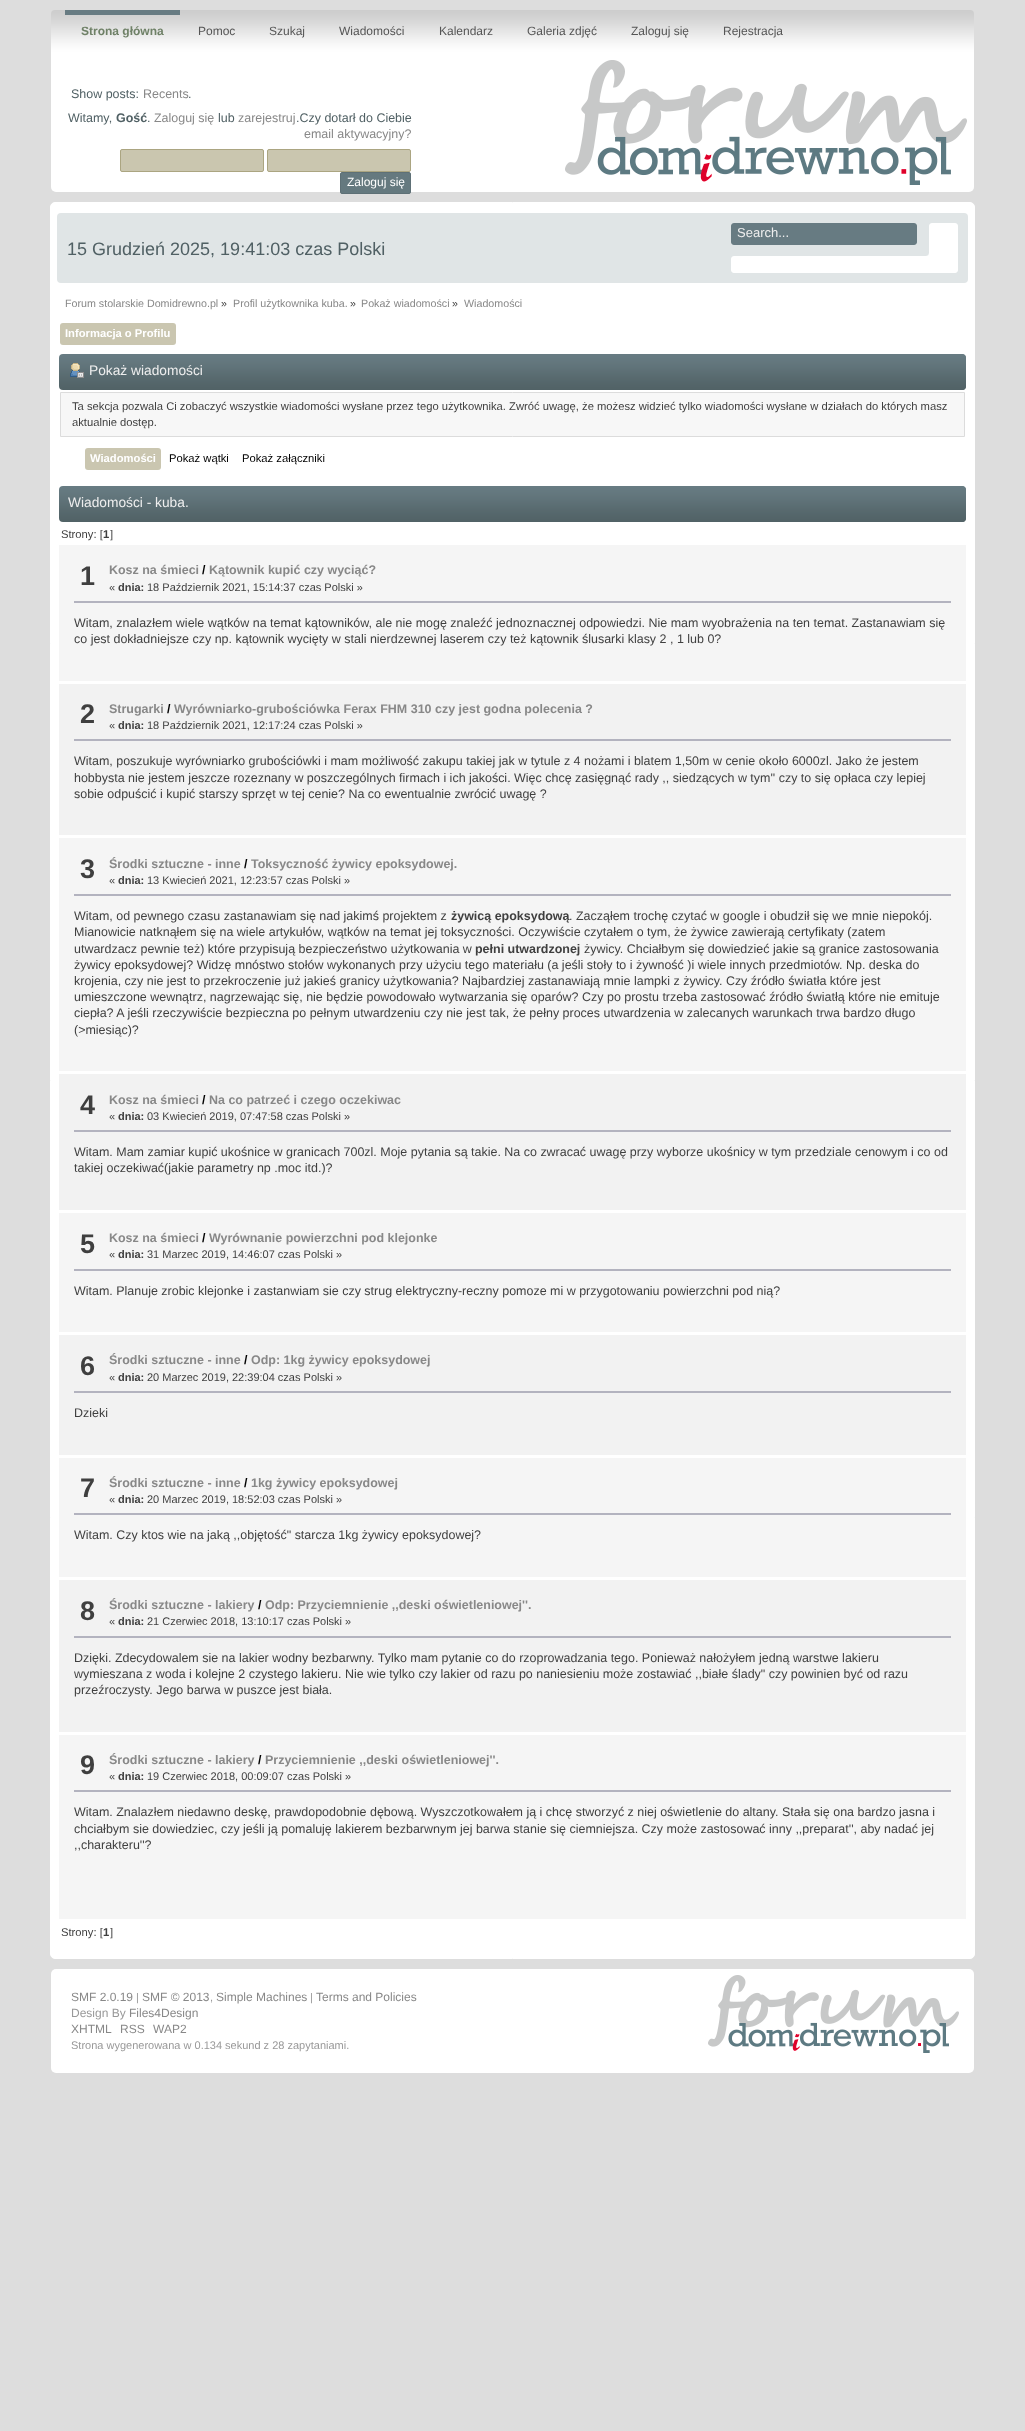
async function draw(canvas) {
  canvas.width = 1025
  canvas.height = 2431
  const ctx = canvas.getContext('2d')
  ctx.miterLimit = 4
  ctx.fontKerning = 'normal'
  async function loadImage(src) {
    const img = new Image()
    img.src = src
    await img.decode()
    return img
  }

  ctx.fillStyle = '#ddd'
  ctx.fillRect(0, 0, 1025, 2431)
  ctx.drawImage(await loadImage('image0.png'), 51, 10, 923, 42)
  ctx.fillStyle = '#677b82'
  ctx.fillRect(65, 10, 115, 5)
  ctx.font = 'bold 12px Liberation Sans'
  ctx.fillStyle = '#6f8167'
  ctx.fillText('Strona główna', 81, 35)
  ctx.font = '12px Liberation Sans'
  ctx.fillStyle = '#555'
  ctx.fillText('Pomoc', 198, 35)
  ctx.fillText('Szukaj', 269, 35)
  ctx.fillText('Wiadomości', 339, 35)
  ctx.fillText('Kalendarz', 439, 35)
  ctx.fillText('Galeria zdjęć', 527, 35)
  ctx.fillText('Zaloguj się', 631, 35)
  ctx.fillText('Rejestracja', 723, 35)
  ctx.fillStyle = '#fff'
  ctx.beginPath()
  ctx.roundRect(51, 52, 923, 140, [0, 0, 5, 5])
  ctx.fill()
  ctx.font = '12.48px Liberation Sans'
  ctx.fillStyle = '#506064'
  ctx.fillText('Show posts:', 71, 98)
  ctx.fillStyle = '#888'
  ctx.fillText('Recents', 143, 98)
  ctx.fillStyle = '#506064'
  ctx.fillText('.', 188, 98)
  ctx.fillText('Witamy,', 68, 122)
  ctx.font = 'bold 12.48px Liberation Sans'
  ctx.fillText('Gość', 116, 122)
  ctx.font = '12.48px Liberation Sans'
  ctx.fillText('.', 147, 122)
  ctx.fillStyle = '#888'
  ctx.fillText('Zaloguj się', 154, 122)
  ctx.fillStyle = '#506064'
  ctx.fillText('lub', 218, 122)
  ctx.fillStyle = '#888'
  ctx.fillText('zarejestruj', 238, 122)
  ctx.fillStyle = '#506064'
  ctx.fillText('.Czy dotarł do Ciebie', 296, 122)
  ctx.fillStyle = '#888'
  ctx.fillText('email aktywacyjny?', 304, 138)
  ctx.fillStyle = '#cac6af'
  ctx.beginPath()
  ctx.roundRect(120.5, 149.5, 143, 22, 1.5)
  ctx.fill()
  ctx.strokeStyle = '#aba581'
  ctx.stroke()
  ctx.beginPath()
  ctx.roundRect(267.5, 149.5, 143, 22, 1.5)
  ctx.fill()
  ctx.stroke()
  ctx.fillStyle = '#65797f'
  ctx.beginPath()
  ctx.roundRect(340.5, 172.5, 70, 21, 1.5)
  ctx.fill()
  ctx.strokeStyle = '#5e7076'
  ctx.stroke()
  ctx.font = '12px Liberation Sans'
  ctx.fillStyle = '#fff'
  ctx.fillText('Zaloguj się', 347, 186)
  ctx.drawImage(await loadImage('image1.png'), 565, 60, 402, 125)
  ctx.beginPath()
  ctx.roundRect(50.5, 202.5, 924, 1756, 4.5)
  ctx.fill()
  ctx.strokeStyle = '#fff'
  ctx.stroke()
  ctx.fillStyle = '#e0e5e6'
  ctx.beginPath()
  ctx.roundRect(57, 213, 911, 70, 4)
  ctx.fill()
  ctx.drawImage(await loadImage('image2.png'), 731, 223, 227, 50)
  ctx.font = '13px Liberation Sans'
  ctx.fillStyle = '#eee'
  ctx.fillText('Search...', 737, 237)
  ctx.font = '18px Liberation Sans'
  ctx.fillStyle = '#506064'
  ctx.fillText('15 Grudzień 2025, 19:41:03 czas Polski', 67, 255)
  ctx.font = '10.7px Liberation Sans'
  ctx.fillStyle = '#888'
  ctx.fillText('Forum stolarskie Domidrewno.pl', 65, 307)
  ctx.fillStyle = '#3f3f3f'
  ctx.fillText('»', 221, 307)
  ctx.fillStyle = '#888'
  ctx.fillText('Profil użytkownika kuba.', 233, 307)
  ctx.fillStyle = '#3f3f3f'
  ctx.fillText('»', 350, 307)
  ctx.fillStyle = '#888'
  ctx.fillText('Pokaż wiadomości', 361, 307)
  ctx.fillStyle = '#3f3f3f'
  ctx.fillText('»', 452, 307)
  ctx.fillStyle = '#888'
  ctx.fillText('Wiadomości', 464, 307)
  ctx.fillStyle = '#cac6b0'
  ctx.beginPath()
  ctx.roundRect(65, 323, 111, 22, 3)
  ctx.fill()
  ctx.beginPath()
  ctx.roundRect(60, 323, 111, 22, 3)
  ctx.fill()
  ctx.font = 'bold 11.23px Liberation Sans'
  ctx.fillStyle = '#fff'
  ctx.fillText('Informacja o Profilu', 65, 337)
  ctx.drawImage(await loadImage('image3.png'), 59, 354, 907, 36)
  ctx.drawImage(await loadImage('image4.png'), 962, 354, 4, 36)
  ctx.drawImage(await loadImage('image5.png'), 70, 363, 14, 15)
  ctx.font = '13.75px Liberation Sans'
  ctx.fillStyle = '#eee'
  ctx.fillText('Pokaż wiadomości', 89, 375)
  ctx.fillStyle = '#f7f7f7'
  ctx.beginPath()
  ctx.rect(60.5, 392.5, 904, 44)
  ctx.fill()
  ctx.strokeStyle = '#dcdcdc'
  ctx.stroke()
  ctx.font = '11.23px Liberation Sans'
  ctx.fillStyle = '#3f3f3f'
  ctx.fillText('Ta sekcja pozwala Ci zobaczyć wszystkie wiadomości wysłane przez tego użytkownika. Zwróć uwagę, że możesz widzieć tylko wiadomości wysłane w działach do których masz', 72, 410)
  ctx.fillText('aktualnie dostęp.', 72, 426)
  ctx.fillStyle = '#cac6b0'
  ctx.beginPath()
  ctx.roundRect(90, 448, 71, 22, 3)
  ctx.fill()
  ctx.beginPath()
  ctx.roundRect(85, 448, 71, 22, 3)
  ctx.fill()
  ctx.font = 'bold 11.23px Liberation Sans'
  ctx.fillStyle = '#fff'
  ctx.fillText('Wiadomości', 90, 462)
  ctx.font = '11.23px Liberation Sans'
  ctx.fillStyle = '#000'
  ctx.fillText('Pokaż wątki', 169, 462)
  ctx.fillText('Pokaż załączniki', 242, 462)
  ctx.drawImage(await loadImage('image3.png'), 59, 486, 907, 36)
  ctx.drawImage(await loadImage('image4.png'), 962, 486, 4, 36)
  ctx.font = '13.75px Liberation Sans'
  ctx.fillStyle = '#eee'
  ctx.fillText('Wiadomości - kuba.', 68, 507)
  ctx.font = '11.23px Liberation Sans'
  ctx.fillStyle = '#3f3f3f'
  ctx.fillText('Strony: [', 61, 538)
  ctx.font = 'bold 11.23px Liberation Sans'
  ctx.fillText('1', 103, 538)
  ctx.font = '11.23px Liberation Sans'
  ctx.fillText(']', 110, 538)
  ctx.fillStyle = '#f5f5f5'
  ctx.fillRect(59, 545, 907, 136)
  ctx.font = 'bold 27px Liberation Sans'
  ctx.fillStyle = '#3f3f3f'
  ctx.fillText('1', 80, 585)
  ctx.font = 'bold 12.48px Liberation Sans'
  ctx.fillStyle = '#888'
  ctx.fillText('Kosz na śmieci', 109, 574)
  ctx.fillStyle = '#000'
  ctx.fillText('/', 202, 574)
  ctx.fillStyle = '#888'
  ctx.fillText('Kątownik kupić czy wyciąć?', 209, 574)
  ctx.font = '11px Liberation Sans'
  ctx.fillStyle = '#3f3f3f'
  ctx.fillText('«', 109, 591)
  ctx.font = 'bold 11px Liberation Sans'
  ctx.fillText('dnia:', 118, 591)
  ctx.font = '11px Liberation Sans'
  ctx.fillText('18 Październik 2021, 15:14:37 czas Polski »', 147, 591)
  ctx.fillStyle = '#b3b3bf'
  ctx.fillRect(74, 601, 877, 2)
  ctx.font = '12.48px Liberation Sans'
  ctx.fillStyle = '#3f3f3f'
  ctx.fillText('Witam, znalazłem wiele wątków na temat kątowników, ale nie mogę znaleźć jednoznacznej odpowiedzi. Nie mam wyobrażenia na ten temat. Zastanawiam się', 74, 627)
  ctx.fillText('co jest dokładniejsze czy np. kątownik wycięty w stali nierdzewnej laserem czy też kątownik ślusarki klasy 2 , 1 lub 0?', 74, 643)
  ctx.fillStyle = '#f2f2f2'
  ctx.fillRect(59, 684, 907, 151)
  ctx.font = 'bold 27px Liberation Sans'
  ctx.fillStyle = '#3f3f3f'
  ctx.fillText('2', 80, 723)
  ctx.font = 'bold 12.48px Liberation Sans'
  ctx.fillStyle = '#888'
  ctx.fillText('Strugarki', 109, 713)
  ctx.fillStyle = '#000'
  ctx.fillText('/', 167, 713)
  ctx.fillStyle = '#888'
  ctx.fillText('Wyrówniarko-grubościówka Ferax FHM 310 czy jest godna polecenia ?', 174, 713)
  ctx.font = '11px Liberation Sans'
  ctx.fillStyle = '#3f3f3f'
  ctx.fillText('«', 109, 729)
  ctx.font = 'bold 11px Liberation Sans'
  ctx.fillText('dnia:', 118, 729)
  ctx.font = '11px Liberation Sans'
  ctx.fillText('18 Październik 2021, 12:17:24 czas Polski »', 147, 729)
  ctx.fillStyle = '#b3b3bf'
  ctx.fillRect(74, 739, 877, 2)
  ctx.font = '12.48px Liberation Sans'
  ctx.fillStyle = '#3f3f3f'
  ctx.fillText('Witam, poszukuje wyrówniarko grubościówki i mam możliwość zakupu takiej jak w tytule z 4 nożami i blatem 1,50m w cenie około 6000zl. Jako że jestem', 74, 765)
  ctx.fillText('hobbysta nie jestem jeszcze rozeznany w poszczególnych firmach i ich jakości. Więc chcę zasięgnąć rady ,, siedzących w tym\'\' czy to się opłaca czy lepiej', 74, 782)
  ctx.fillText('sobie odpuścić i kupić starszy sprzęt w tej cenie? Na co ewentualnie zwrócić uwagę ?', 74, 798)
  ctx.fillStyle = '#f5f5f5'
  ctx.fillRect(59, 838, 907, 233)
  ctx.font = 'bold 27px Liberation Sans'
  ctx.fillStyle = '#3f3f3f'
  ctx.fillText('3', 80, 878)
  ctx.font = 'bold 12.48px Liberation Sans'
  ctx.fillStyle = '#888'
  ctx.fillText('Środki sztuczne - inne', 109, 868)
  ctx.fillStyle = '#000'
  ctx.fillText('/', 244, 868)
  ctx.fillStyle = '#888'
  ctx.fillText('Toksyczność żywicy epoksydowej.', 251, 868)
  ctx.font = '11px Liberation Sans'
  ctx.fillStyle = '#3f3f3f'
  ctx.fillText('«', 109, 884)
  ctx.font = 'bold 11px Liberation Sans'
  ctx.fillText('dnia:', 118, 884)
  ctx.font = '11px Liberation Sans'
  ctx.fillText('13 Kwiecień 2021, 12:23:57 czas Polski »', 147, 884)
  ctx.fillStyle = '#b3b3bf'
  ctx.fillRect(74, 894, 877, 2)
  ctx.font = '12.48px Liberation Sans'
  ctx.fillStyle = '#3f3f3f'
  ctx.fillText('Witam, od pewnego czasu zastanawiam się nad jakimś projektem z', 74, 920)
  ctx.font = 'bold 12.48px Liberation Sans'
  ctx.fillText('żywicą epoksydową', 451, 920)
  ctx.font = '12.48px Liberation Sans'
  ctx.fillText('. Zacząłem trochę czytać w google i obudził się we mnie niepokój.', 569, 920)
  ctx.fillText('Mianowicie natknąłem się na wiele artykułów, wątków na temat jej toksyczności. Oczywiście czytałem o tym, że żywice zawierają certyfikaty (zatem', 74, 936)
  ctx.fillText('utwardzacz pewnie też) które przypisują bezpieczeństwo użytkowania w', 74, 953)
  ctx.font = 'bold 12.48px Liberation Sans'
  ctx.fillText('pełni utwardzonej', 475, 953)
  ctx.font = '12.48px Liberation Sans'
  ctx.fillText('żywicy. Chciałbym się dowiedzieć jakie są granice zastosowania', 584, 953)
  ctx.fillText('żywicy epoksydowej? Widzę mnóstwo stołów wykonanych przy użyciu tego materiału (a jeśli stoły to i żywność )i wiele innych przedmiotów. Np. deska do', 74, 969)
  ctx.fillText('krojenia, czy nie jest to przekroczenie już jakieś granicy użytkowania? Najbardziej zastanawiają mnie lampki z żywicy. Czy źródło światła które jest', 74, 985)
  ctx.fillText('umieszczone wewnątrz, nagrzewając się, nie będzie powodowało wytwarzania się oparów? Czy po prostu trzeba zastosować źródło światłą które nie emituje', 74, 1001)
  ctx.fillText('ciepła? A jeśli rzeczywiście bezpieczna po pełnym utwardzeniu czy nie jest tak, że pełny proces utwardzenia w zalecanych warunkach trwa bardzo długo', 74, 1017)
  ctx.fillText('(>miesiąc)?', 74, 1034)
  ctx.fillStyle = '#f2f2f2'
  ctx.fillRect(59, 1074, 907, 136)
  ctx.font = 'bold 27px Liberation Sans'
  ctx.fillStyle = '#3f3f3f'
  ctx.fillText('4', 80, 1114)
  ctx.font = 'bold 12.48px Liberation Sans'
  ctx.fillStyle = '#888'
  ctx.fillText('Kosz na śmieci', 109, 1104)
  ctx.fillStyle = '#000'
  ctx.fillText('/', 202, 1104)
  ctx.fillStyle = '#888'
  ctx.fillText('Na co patrzeć i czego oczekiwac', 209, 1104)
  ctx.font = '11px Liberation Sans'
  ctx.fillStyle = '#3f3f3f'
  ctx.fillText('«', 109, 1120)
  ctx.font = 'bold 11px Liberation Sans'
  ctx.fillText('dnia:', 118, 1120)
  ctx.font = '11px Liberation Sans'
  ctx.fillText('03 Kwiecień 2019, 07:47:58 czas Polski »', 147, 1120)
  ctx.fillStyle = '#b3b3bf'
  ctx.fillRect(74, 1130, 877, 2)
  ctx.font = '12.48px Liberation Sans'
  ctx.fillStyle = '#3f3f3f'
  ctx.fillText('Witam. Mam zamiar kupić ukośnice w granicach 700zl. Moje pytania są takie. Na co zwracać uwagę przy wyborze ukośnicy w tym przedziale cenowym i co od', 74, 1156)
  ctx.fillText('takiej oczekiwać(jakie parametry np .moc itd.)?', 74, 1172)
  ctx.fillStyle = '#f5f5f5'
  ctx.fillRect(59, 1213, 907, 119)
  ctx.font = 'bold 27px Liberation Sans'
  ctx.fillStyle = '#3f3f3f'
  ctx.fillText('5', 80, 1253)
  ctx.font = 'bold 12.48px Liberation Sans'
  ctx.fillStyle = '#888'
  ctx.fillText('Kosz na śmieci', 109, 1242)
  ctx.fillStyle = '#000'
  ctx.fillText('/', 202, 1242)
  ctx.fillStyle = '#888'
  ctx.fillText('Wyrównanie powierzchni pod klejonke', 209, 1242)
  ctx.font = '11px Liberation Sans'
  ctx.fillStyle = '#3f3f3f'
  ctx.fillText('«', 109, 1258)
  ctx.font = 'bold 11px Liberation Sans'
  ctx.fillText('dnia:', 118, 1258)
  ctx.font = '11px Liberation Sans'
  ctx.fillText('31 Marzec 2019, 14:46:07 czas Polski »', 147, 1258)
  ctx.fillStyle = '#b3b3bf'
  ctx.fillRect(74, 1269, 877, 2)
  ctx.font = '12.48px Liberation Sans'
  ctx.fillStyle = '#3f3f3f'
  ctx.fillText('Witam. Planuje zrobic klejonke i zastanwiam sie czy strug elektryczny-reczny pomoze mi w przygotowaniu powierzchni pod nią?', 74, 1295)
  ctx.fillStyle = '#f2f2f2'
  ctx.fillRect(59, 1335, 907, 120)
  ctx.font = 'bold 27px Liberation Sans'
  ctx.fillStyle = '#3f3f3f'
  ctx.fillText('6', 80, 1375)
  ctx.font = 'bold 12.48px Liberation Sans'
  ctx.fillStyle = '#888'
  ctx.fillText('Środki sztuczne - inne', 109, 1364)
  ctx.fillStyle = '#000'
  ctx.fillText('/', 244, 1364)
  ctx.fillStyle = '#888'
  ctx.fillText('Odp: 1kg żywicy epoksydowej', 251, 1364)
  ctx.font = '11px Liberation Sans'
  ctx.fillStyle = '#3f3f3f'
  ctx.fillText('«', 109, 1381)
  ctx.font = 'bold 11px Liberation Sans'
  ctx.fillText('dnia:', 118, 1381)
  ctx.font = '11px Liberation Sans'
  ctx.fillText('20 Marzec 2019, 22:39:04 czas Polski »', 147, 1381)
  ctx.fillStyle = '#b3b3bf'
  ctx.fillRect(74, 1391, 877, 2)
  ctx.font = '12.48px Liberation Sans'
  ctx.fillStyle = '#3f3f3f'
  ctx.fillText('Dzieki', 74, 1417)
  ctx.fillStyle = '#f5f5f5'
  ctx.fillRect(59, 1458, 907, 119)
  ctx.font = 'bold 27px Liberation Sans'
  ctx.fillStyle = '#3f3f3f'
  ctx.fillText('7', 80, 1497)
  ctx.font = 'bold 12.48px Liberation Sans'
  ctx.fillStyle = '#888'
  ctx.fillText('Środki sztuczne - inne', 109, 1487)
  ctx.fillStyle = '#000'
  ctx.fillText('/', 244, 1487)
  ctx.fillStyle = '#888'
  ctx.fillText('1kg żywicy epoksydowej', 251, 1487)
  ctx.font = '11px Liberation Sans'
  ctx.fillStyle = '#3f3f3f'
  ctx.fillText('«', 109, 1503)
  ctx.font = 'bold 11px Liberation Sans'
  ctx.fillText('dnia:', 118, 1503)
  ctx.font = '11px Liberation Sans'
  ctx.fillText('20 Marzec 2019, 18:52:03 czas Polski »', 147, 1503)
  ctx.fillStyle = '#b3b3bf'
  ctx.fillRect(74, 1513, 877, 2)
  ctx.font = '12.48px Liberation Sans'
  ctx.fillStyle = '#3f3f3f'
  ctx.fillText('Witam. Czy ktos wie na jaką ,,objętość" starcza 1kg żywicy epoksydowej?', 74, 1539)
  ctx.fillStyle = '#f2f2f2'
  ctx.fillRect(59, 1580, 907, 152)
  ctx.font = 'bold 27px Liberation Sans'
  ctx.fillStyle = '#3f3f3f'
  ctx.fillText('8', 80, 1620)
  ctx.font = 'bold 12.48px Liberation Sans'
  ctx.fillStyle = '#888'
  ctx.fillText('Środki sztuczne - lakiery', 109, 1609)
  ctx.fillStyle = '#000'
  ctx.fillText('/', 258, 1609)
  ctx.fillStyle = '#888'
  ctx.fillText('Odp: Przyciemnienie ,,deski oświetleniowej\'\'.', 265, 1609)
  ctx.font = '11px Liberation Sans'
  ctx.fillStyle = '#3f3f3f'
  ctx.fillText('«', 109, 1625)
  ctx.font = 'bold 11px Liberation Sans'
  ctx.fillText('dnia:', 118, 1625)
  ctx.font = '11px Liberation Sans'
  ctx.fillText('21 Czerwiec 2018, 13:10:17 czas Polski »', 147, 1625)
  ctx.fillStyle = '#b3b3bf'
  ctx.fillRect(74, 1636, 877, 2)
  ctx.font = '12.48px Liberation Sans'
  ctx.fillStyle = '#3f3f3f'
  ctx.fillText('Dzięki. Zdecydowalem sie na lakier wodny bezbarwny. Tylko mam pytanie co do rzoprowadzania tego. Ponieważ nałożyłem jedną warstwe lakieru', 74, 1662)
  ctx.fillText('wymieszana z woda i kolejne 2 czystego lakieru. Nie wie tylko czy lakier od razu po naniesieniu może zostawiać ,,białe ślady" czy powinien być od razu', 74, 1678)
  ctx.fillText('przeźroczysty. Jego barwa w puszce jest biała.', 74, 1694)
  ctx.fillStyle = '#f5f5f5'
  ctx.fillRect(59, 1735, 907, 184)
  ctx.font = 'bold 27px Liberation Sans'
  ctx.fillStyle = '#3f3f3f'
  ctx.fillText('9', 80, 1774)
  ctx.font = 'bold 12.48px Liberation Sans'
  ctx.fillStyle = '#888'
  ctx.fillText('Środki sztuczne - lakiery', 109, 1764)
  ctx.fillStyle = '#000'
  ctx.fillText('/', 258, 1764)
  ctx.fillStyle = '#888'
  ctx.fillText('Przyciemnienie ,,deski oświetleniowej\'\'.', 265, 1764)
  ctx.font = '11px Liberation Sans'
  ctx.fillStyle = '#3f3f3f'
  ctx.fillText('«', 109, 1780)
  ctx.font = 'bold 11px Liberation Sans'
  ctx.fillText('dnia:', 118, 1780)
  ctx.font = '11px Liberation Sans'
  ctx.fillText('19 Czerwiec 2018, 00:09:07 czas Polski »', 147, 1780)
  ctx.fillStyle = '#b3b3bf'
  ctx.fillRect(74, 1790, 877, 2)
  ctx.font = '12.48px Liberation Sans'
  ctx.fillStyle = '#3f3f3f'
  ctx.fillText('Witam. Znalazłem niedawno deskę, prawdopodobnie dębową. Wyszczotkowałem ją i chcę stworzyć z niej oświetlenie do altany. Stała się ona bardzo jasna i', 74, 1816)
  ctx.fillText('chciałbym sie dowiedziec, czy jeśli ją pomaluję lakierem bezbarwnym jej barwa stanie się ciemniejsza. Czy może zastosować inny ,,preparat\'\', aby nadać jej', 74, 1833)
  ctx.fillText(',,charakteru\'\'?', 74, 1849)
  ctx.font = '11.23px Liberation Sans'
  ctx.fillText('Strony: [', 61, 1936)
  ctx.font = 'bold 11.23px Liberation Sans'
  ctx.fillText('1', 103, 1936)
  ctx.font = '11.23px Liberation Sans'
  ctx.fillText(']', 110, 1936)
  ctx.fillStyle = '#fff'
  ctx.beginPath()
  ctx.roundRect(51, 1969, 923, 104, 5)
  ctx.fill()
  ctx.font = '12px Liberation Sans'
  ctx.fillStyle = '#888'
  ctx.fillText('SMF 2.0.19', 71, 2001)
  ctx.font = '11px Liberation Sans'
  ctx.fillStyle = '#999'
  ctx.fillText('|', 136, 2001)
  ctx.font = '12px Liberation Sans'
  ctx.fillStyle = '#888'
  ctx.fillText('SMF © 2013', 142, 2001)
  ctx.font = '11px Liberation Sans'
  ctx.fillStyle = '#999'
  ctx.fillText(',', 210, 2001)
  ctx.font = '12px Liberation Sans'
  ctx.fillStyle = '#888'
  ctx.fillText('Simple Machines', 216, 2001)
  ctx.font = '11px Liberation Sans'
  ctx.fillStyle = '#999'
  ctx.fillText('|', 310, 2001)
  ctx.font = '12px Liberation Sans'
  ctx.fillStyle = '#888'
  ctx.fillText('Terms and Policies', 316, 2001)
  ctx.fillStyle = '#999'
  ctx.fillText('Design By', 71, 2017)
  ctx.fillStyle = '#888'
  ctx.fillText('Files4Design', 129, 2017)
  ctx.fillText('XHTML', 71, 2033)
  ctx.fillText('RSS', 120, 2033)
  ctx.fillText('WAP2', 153, 2033)
  ctx.font = '11px Liberation Sans'
  ctx.fillStyle = '#999'
  ctx.fillText('Strona wygenerowana w 0.134 sekund z 28 zapytaniami.', 71, 2049)
  ctx.drawImage(await loadImage('image6.png'), 708, 1975, 251, 78)
}

draw(document.querySelector('canvas'))
